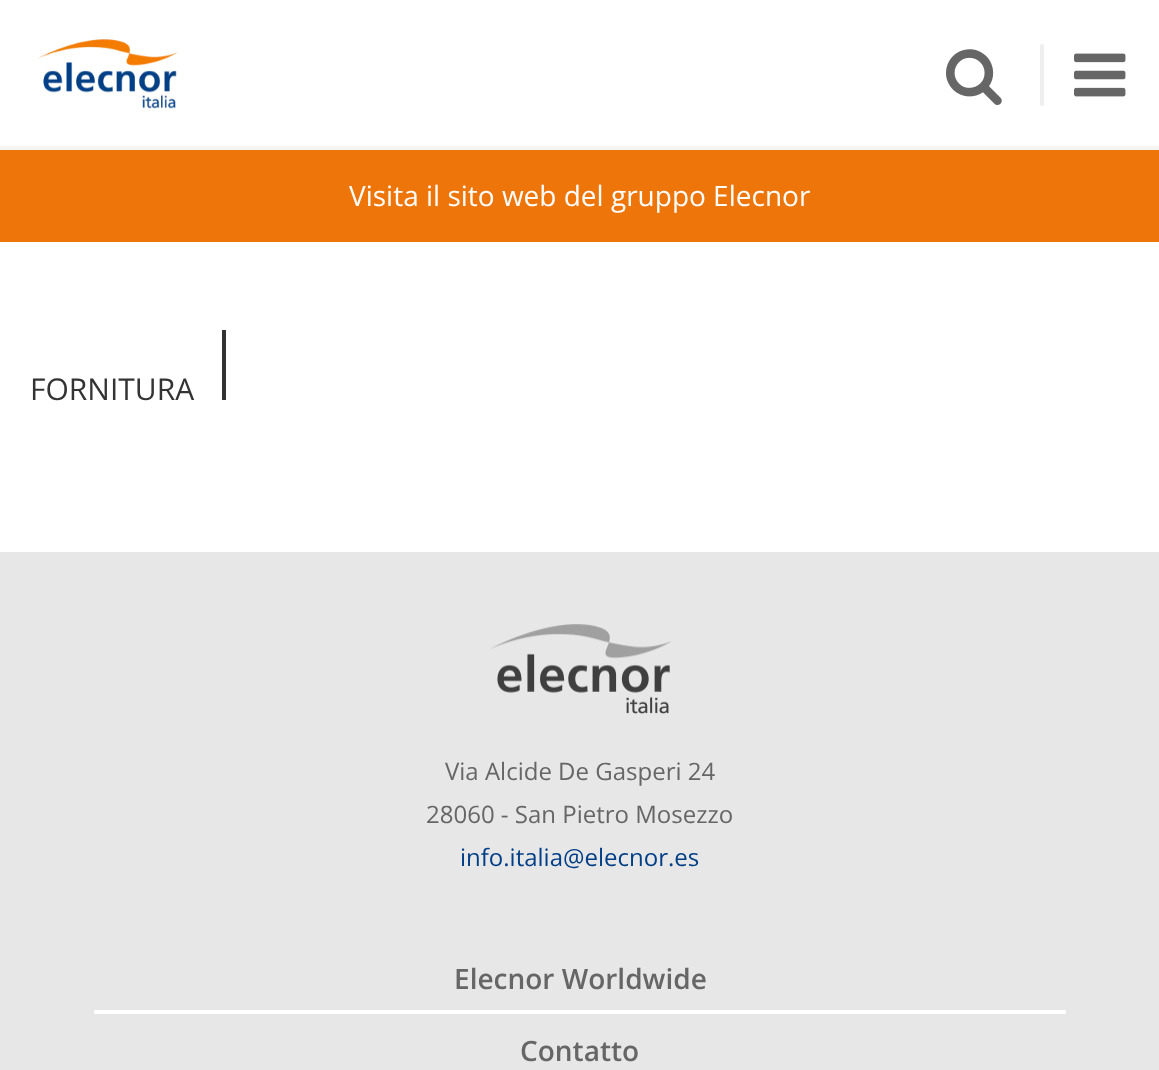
async function draw(canvas) {
  canvas.width = 1159
  canvas.height = 1070
  const ctx = canvas.getContext('2d')
  ctx.miterLimit = 4
  ctx.fontKerning = 'normal'
  async function loadImage(src) {
    const img = new Image()
    img.src = src
    await img.decode()
    return img
  }

  ctx.fillStyle = '#fff'
  ctx.fillRect(0, 0, 1159, 1070)
  ctx.drawImage(await loadImage('image0.png'), 38, 39, 140, 70)
  ctx.drawImage(await loadImage('image1.png'), 946, 49, 56, 56)
  ctx.fillStyle = '#eee'
  ctx.beginPath()
  ctx.roundRect(1040, 44, 4, 62, 2)
  ctx.fill()
  ctx.drawImage(await loadImage('image2.png'), 1074, 53, 52, 44)
  ctx.fillStyle = '#ee750a'
  ctx.fillRect(0, 150, 1159, 92)
  ctx.fillStyle = '#f5f5f3'
  ctx.fillRect(0, 146, 1159, 4)
  ctx.font = '28px Open Sans'
  ctx.fillStyle = '#fff'
  ctx.fillText('Visita il sito web del gruppo Elecnor', 349, 206)
  ctx.font = '30px Open Sans'
  ctx.fillStyle = '#333'
  ctx.fillText('FORNITURA', 30, 400)
  ctx.fillRect(222, 330, 4, 70)
  ctx.fillStyle = '#e7e7e7'
  ctx.fillRect(0, 552, 1159, 518)
  ctx.drawImage(await loadImage('image3.png'), 490, 624, 181, 90)
  ctx.font = '24px Open Sans'
  ctx.fillStyle = '#666'
  ctx.fillText('Via Alcide De Gasperi 24', 445, 780)
  ctx.fillText('28060 - San Pietro Mosezzo', 426, 823)
  ctx.fillStyle = '#003f87'
  ctx.fillText('info.italia@elecnor.es', 460, 866)
  ctx.font = '600 28px Open Sans'
  ctx.fillStyle = '#666'
  ctx.fillText('Elecnor Worldwide', 454, 989)
  ctx.fillStyle = '#fff'
  ctx.fillRect(94, 1010, 972, 4)
  ctx.fillStyle = '#666'
  ctx.fillText('Contatto', 520, 1061)
}

draw(document.querySelector('canvas'))
